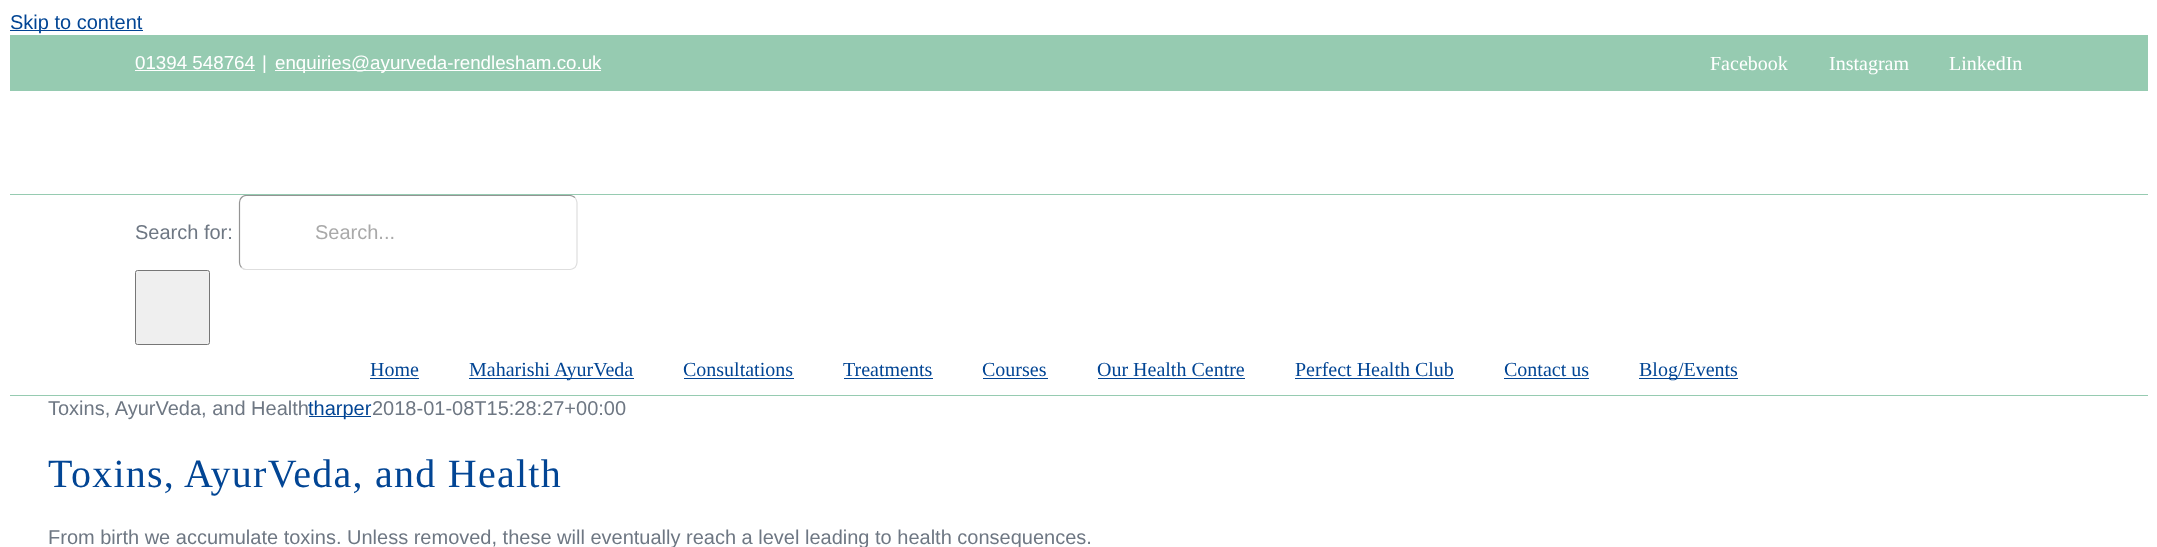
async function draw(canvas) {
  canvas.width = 2157
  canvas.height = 547
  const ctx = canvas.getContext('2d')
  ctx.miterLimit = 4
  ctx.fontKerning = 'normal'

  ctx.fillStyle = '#fff'
  ctx.fillRect(0, 0, 2157, 547)
  ctx.fillStyle = '#024594'
  ctx.fillRect(10, 30, 133, 1)
  ctx.font = '20px Liberation Sans'
  ctx.fillText('Skip to content', 10, 29)
  ctx.fillStyle = '#96cbb1'
  ctx.fillRect(10, 35, 2138, 56)
  ctx.font = '18.75px Liberation Sans'
  ctx.fillStyle = '#fff'
  ctx.fillText('01394 548764', 135, 69)
  ctx.fillRect(135, 70, 120, 1)
  ctx.fillText('|', 262, 69)
  ctx.fillRect(275, 70, 326, 1)
  ctx.fillText('enquiries@ayurveda-rendlesham.co.uk', 275, 69)
  ctx.font = '20px Liberation Serif'
  ctx.fillText('Facebook', 1710, 70)
  ctx.fillText('Instagram', 1829, 70)
  ctx.fillText('LinkedIn', 1949, 70)
  ctx.fillStyle = '#96cbb1'
  ctx.fillRect(10, 194, 2138, 1)
  ctx.fillRect(10, 395, 2138, 1)
  ctx.font = '20px Liberation Sans'
  ctx.fillStyle = '#6e7783'
  ctx.fillText('Search for:', 135, 239)
  ctx.beginPath()
  ctx.moveTo(575, 197.5)
  ctx.bezierCurveTo(576, 199, 577, 200.5, 577, 202.5)
  ctx.lineTo(577, 262.5)
  ctx.bezierCurveTo(577, 264.5, 576, 266, 575, 267.5)
  ctx.bezierCurveTo(573.5, 268.5, 572, 269.5, 570, 269.5)
  ctx.lineTo(246, 269.5)
  ctx.bezierCurveTo(244.5, 269.5, 242.5, 268.5, 241.5, 267.5)
  ctx.strokeStyle = '#dedede'
  ctx.lineWidth = 1.2
  ctx.stroke()
  ctx.save()
  ctx.beginPath()
  ctx.rect(135, 195, 1888, 200)
  ctx.clip()
  ctx.beginPath()
  ctx.moveTo(241.5, 267.5)
  ctx.bezierCurveTo(240, 266, 239.5, 264.5, 239.5, 262.5)
  ctx.lineTo(239.5, 202.5)
  ctx.bezierCurveTo(239.5, 200.5, 240, 199, 241.5, 197.5)
  ctx.bezierCurveTo(242.5, 196.5, 244.5, 195.5, 246, 195.5)
  ctx.lineTo(570, 195.5)
  ctx.bezierCurveTo(572, 195.5, 573.5, 196.5, 575, 197.5)
  ctx.strokeStyle = '#949494'
  ctx.stroke()
  ctx.restore()
  ctx.fillStyle = '#a9a9a9'
  ctx.fillText('Search...', 315, 239)
  ctx.fillStyle = '#efefef'
  ctx.beginPath()
  ctx.roundRect(135.5, 270.5, 74, 74, 2)
  ctx.fill()
  ctx.strokeStyle = '#767676'
  ctx.lineWidth = 1
  ctx.stroke()
  ctx.font = '20px Liberation Serif'
  ctx.fillStyle = '#024594'
  ctx.fillText('Home', 370, 376)
  ctx.fillRect(370, 378, 49, 1)
  ctx.fillRect(469, 378, 165, 1)
  ctx.fillText('Maharishi AyurVeda', 469, 376)
  ctx.fillText('Consultations', 683, 376)
  ctx.fillRect(684, 378, 110, 1)
  ctx.fillText('Treatments', 843, 376)
  ctx.fillRect(844, 378, 89, 1)
  ctx.fillText('Courses', 982, 376)
  ctx.fillRect(983, 378, 65, 1)
  ctx.fillText('Our Health Centre', 1097, 376)
  ctx.fillRect(1098, 378, 147, 1)
  ctx.fillText('Perfect Health Club', 1295, 376)
  ctx.fillRect(1295, 378, 159, 1)
  ctx.fillText('Contact us', 1504, 376)
  ctx.fillRect(1504, 378, 85, 1)
  ctx.fillRect(1639, 378, 99, 1)
  ctx.fillText('Blog/Events', 1639, 376)
  ctx.font = '20px Liberation Sans'
  ctx.fillStyle = '#6e7783'
  ctx.fillText('Toxins, AyurVeda, and Health', 48, 415)
  ctx.fillStyle = '#024594'
  ctx.fillRect(309, 416, 62, 1)
  ctx.fillText('tharper', 308, 415)
  ctx.fillStyle = '#6e7783'
  ctx.fillText('2018-01-08T15:28:27+00:00', 372, 415)
  ctx.letterSpacing = '1.25px'
  ctx.font = '40px Liberation Serif'
  ctx.fillStyle = '#024594'
  ctx.fillText('Toxins, AyurVeda, and Health', 48, 487)
  ctx.letterSpacing = '0px'
  ctx.font = '20px Liberation Sans'
  ctx.fillStyle = '#6e7783'
  ctx.fillText('From birth we accumulate toxins. Unless removed, these will eventually reach a level leading to health consequences.', 48, 544)
}

draw(document.querySelector('canvas'))
